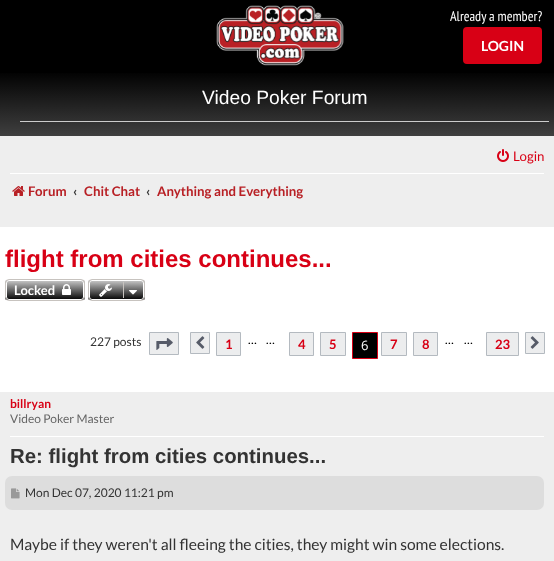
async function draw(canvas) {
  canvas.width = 554
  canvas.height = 561
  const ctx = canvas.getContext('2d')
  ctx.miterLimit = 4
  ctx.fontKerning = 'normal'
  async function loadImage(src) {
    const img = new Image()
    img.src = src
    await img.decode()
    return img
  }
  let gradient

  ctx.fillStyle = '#000'
  ctx.fillRect(0, 0, 554, 561)
  ctx.drawImage(await loadImage('image0.png'), 216, 5, 128, 61)
  ctx.font = '14px PT Sans Narrow'
  ctx.fillStyle = '#fff'
  ctx.fillText('Already a member?', 450, 21)
  ctx.fillStyle = '#d80015'
  ctx.beginPath()
  ctx.roundRect(464, 28, 77, 35, 3)
  ctx.fill()
  ctx.strokeStyle = '#d80015'
  ctx.lineWidth = 2
  ctx.stroke()
  ctx.font = 'bold 14px Lato'
  ctx.fillStyle = '#fff'
  ctx.fillText('LOGIN', 481, 51)
  ctx.fillRect(0, 227, 554, 165)
  gradient = ctx.createLinearGradient(277, 70, 277, 137)
  gradient.addColorStop(0, '#000')
  gradient.addColorStop(1, '#404040')
  ctx.fillStyle = gradient
  ctx.fillRect(0, 73, 554, 63)
  ctx.fillStyle = '#ccc'
  ctx.fillRect(20, 121, 529, 1)
  ctx.font = '19.25px Liberation Sans'
  ctx.fillStyle = '#fff'
  ctx.fillText('Video Poker Forum', 202, 104)
  ctx.fillStyle = '#eee'
  ctx.fillRect(0, 136, 554, 91)
  ctx.drawImage(await loadImage('image1.png'), 497, 149, 12, 13)
  ctx.font = '13.25px Lato'
  ctx.fillStyle = '#d80015'
  ctx.fillText('Login', 513, 161)
  ctx.fillStyle = '#fff'
  ctx.fillRect(10, 173, 534, 1)
  ctx.drawImage(await loadImage('image2.png'), 12, 186, 13, 10)
  ctx.font = 'bold 13.25px Lato'
  ctx.fillStyle = '#b82025'
  ctx.fillText('Forum', 28, 196)
  ctx.fillStyle = '#333'
  ctx.fillText('‹', 73, 196)
  ctx.fillStyle = '#b82025'
  ctx.fillText('Chit Chat', 84, 196)
  ctx.fillStyle = '#333'
  ctx.fillText('‹', 146, 196)
  ctx.fillStyle = '#b82025'
  ctx.fillText('Anything and Everything', 157, 196)
  ctx.font = 'bold 24px Liberation Sans'
  ctx.fillStyle = '#d80015'
  ctx.fillText('flight from cities continues...', 5, 267)
  ctx.save()
  ctx.beginPath()
  ctx.roundRect(5, 279, 80, 22, 4)
  ctx.clip()
  gradient = ctx.createLinearGradient(45, 280, 45, 300)
  gradient.addColorStop(0, '#ccc')
  gradient.addColorStop(1, '#000')
  ctx.fillStyle = gradient
  ctx.fillRect(5, 280, 80, 20)
  ctx.restore()
  ctx.beginPath()
  ctx.roundRect(6.5, 280.5, 77, 19, 2.5)
  ctx.strokeStyle = '#fff'
  ctx.lineWidth = 1
  ctx.stroke()
  ctx.beginPath()
  ctx.roundRect(5.5, 279.5, 79, 21, 3.5)
  ctx.strokeStyle = '#c7c3bf'
  ctx.stroke()
  ctx.font = 'bold 13px Lato'
  ctx.fillStyle = '#fff'
  ctx.fillText('Locked', 14, 295)
  ctx.drawImage(await loadImage('image3.png'), 62, 284, 9, 11)
  ctx.save()
  ctx.beginPath()
  ctx.roundRect(88, 279, 57, 22, 4)
  ctx.clip()
  gradient = ctx.createLinearGradient(117, 280, 117, 300)
  gradient.addColorStop(0, '#ccc')
  gradient.addColorStop(1, '#000')
  ctx.fillStyle = gradient
  ctx.fillRect(88, 280, 57, 20)
  ctx.restore()
  ctx.beginPath()
  ctx.roundRect(89.5, 280.5, 54, 19, 2.5)
  ctx.strokeStyle = '#fff'
  ctx.stroke()
  ctx.beginPath()
  ctx.roundRect(88.5, 279.5, 56, 21, 3.5)
  ctx.strokeStyle = '#c7c3bf'
  ctx.stroke()
  ctx.drawImage(await loadImage('image4.png'), 99, 284, 13, 13)
  ctx.fillStyle = '#c7c3bf'
  ctx.fillRect(123, 282, 1, 16)
  ctx.drawImage(await loadImage('image5.png'), 129, 290, 8, 5)
  ctx.font = '12px Lato'
  ctx.fillStyle = '#333'
  ctx.fillText('227 posts', 90, 346)
  ctx.fillStyle = '#ecedee'
  ctx.beginPath()
  ctx.rect(149.5, 332.5, 29, 22)
  ctx.fill()
  ctx.strokeStyle = '#b4bac0'
  ctx.stroke()
  ctx.drawImage(await loadImage('image6.png'), 156, 338, 17, 12)
  ctx.beginPath()
  ctx.rect(190.5, 332.5, 19, 21)
  ctx.fill()
  ctx.stroke()
  ctx.drawImage(await loadImage('image7.png'), 196, 336, 9, 13)
  ctx.beginPath()
  ctx.rect(216.5, 332.5, 24, 23)
  ctx.fill()
  ctx.stroke()
  ctx.font = 'bold 13px Lato'
  ctx.fillStyle = '#d80015'
  ctx.fillText('1', 225, 349)
  ctx.font = '12px Lato'
  ctx.fillStyle = '#000'
  ctx.fillText('…', 248, 344)
  ctx.fillStyle = '#0a0a0a'
  ctx.fillText('…', 266, 344)
  ctx.fillStyle = '#ecedee'
  ctx.beginPath()
  ctx.rect(289.5, 332.5, 24, 23)
  ctx.fill()
  ctx.stroke()
  ctx.font = 'bold 13px Lato'
  ctx.fillStyle = '#d80015'
  ctx.fillText('4', 298, 349)
  ctx.fillStyle = '#ecedee'
  ctx.beginPath()
  ctx.rect(320.5, 332.5, 25, 23)
  ctx.fill()
  ctx.stroke()
  ctx.fillStyle = '#d80015'
  ctx.fillText('5', 329, 349)
  ctx.fillStyle = '#000'
  ctx.beginPath()
  ctx.rect(352.5, 332.5, 25, 26)
  ctx.fill()
  ctx.strokeStyle = '#d80015'
  ctx.stroke()
  ctx.font = '13px Open Sans'
  ctx.fillStyle = '#fff'
  ctx.fillText('6', 361, 350)
  ctx.fillStyle = '#ecedee'
  ctx.beginPath()
  ctx.rect(381.5, 332.5, 25, 23)
  ctx.fill()
  ctx.strokeStyle = '#b4bac0'
  ctx.stroke()
  ctx.font = 'bold 13px Lato'
  ctx.fillStyle = '#d80015'
  ctx.fillText('7', 390, 349)
  ctx.fillStyle = '#ecedee'
  ctx.beginPath()
  ctx.rect(413.5, 332.5, 24, 23)
  ctx.fill()
  ctx.stroke()
  ctx.fillStyle = '#d80015'
  ctx.fillText('8', 422, 349)
  ctx.font = '12px Lato'
  ctx.fillStyle = '#000'
  ctx.fillText('…', 445, 344)
  ctx.fillStyle = '#0a0a0a'
  ctx.fillText('…', 464, 344)
  ctx.fillStyle = '#ecedee'
  ctx.beginPath()
  ctx.rect(486.5, 332.5, 32, 23)
  ctx.fill()
  ctx.stroke()
  ctx.font = 'bold 13px Lato'
  ctx.fillStyle = '#d80015'
  ctx.fillText('23', 495, 349)
  ctx.fillStyle = '#ecedee'
  ctx.beginPath()
  ctx.rect(525.5, 332.5, 19, 21)
  ctx.fill()
  ctx.stroke()
  ctx.drawImage(await loadImage('image8.png'), 530, 336, 9, 13)
  ctx.fillStyle = '#eee'
  ctx.fillRect(0, 392, 554, 169)
  ctx.fillStyle = '#fff'
  ctx.fillRect(10, 436, 534, 1)
  ctx.font = 'bold 12px Lato'
  ctx.fillStyle = '#d80015'
  ctx.fillText('billryan', 10, 408)
  ctx.font = '12px Lato'
  ctx.fillStyle = '#666'
  ctx.fillText('Video Poker Master', 10, 423)
  ctx.font = 'bold 20.4px Liberation Sans'
  ctx.fillStyle = '#333'
  ctx.fillText('Re: flight from cities continues...', 10, 463)
  ctx.fillStyle = '#ddd'
  ctx.beginPath()
  ctx.roundRect(5, 476, 539, 34, 7)
  ctx.fill()
  ctx.drawImage(await loadImage('image9.png'), 11, 488, 9, 11)
  ctx.font = '12px Lato'
  ctx.fillStyle = '#333'
  ctx.fillText('Mon Dec 07, 2020 11:21 pm', 25, 497)
  ctx.font = '15.6px Lato'
  ctx.fillText('Maybe if they weren\'t all fleeing the cities, they might win some elections.', 10, 550)
}

draw(document.querySelector('canvas'))
